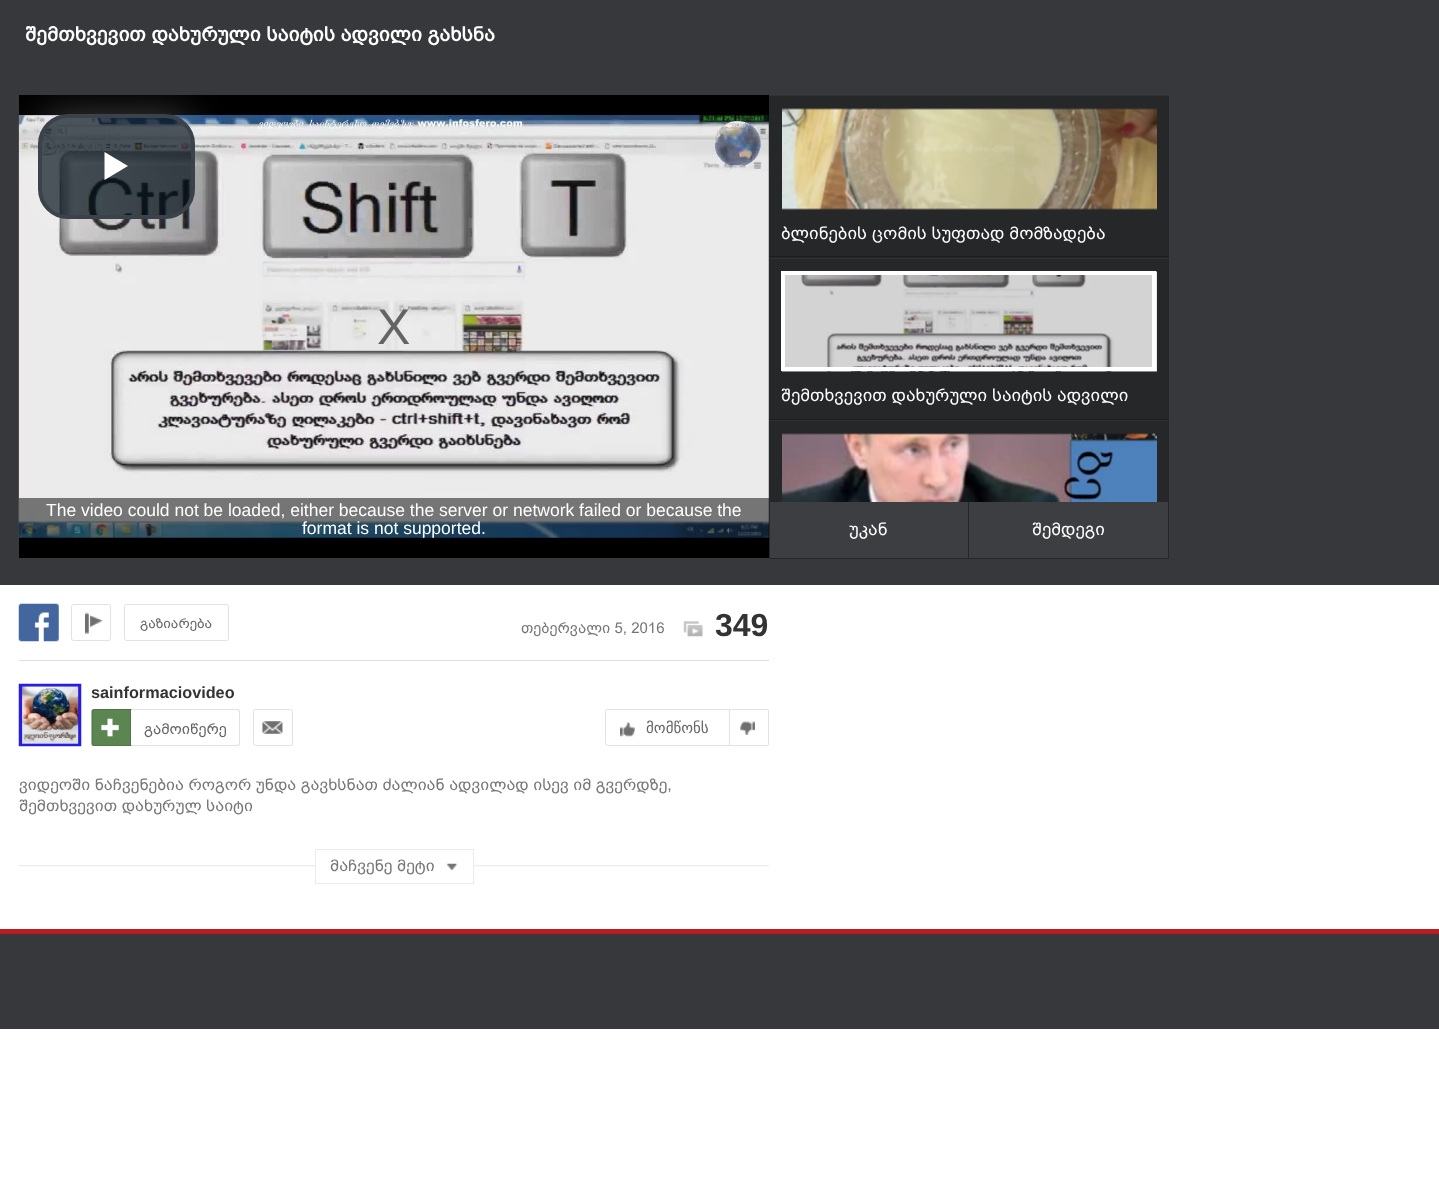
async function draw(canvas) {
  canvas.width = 1439
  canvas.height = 1192
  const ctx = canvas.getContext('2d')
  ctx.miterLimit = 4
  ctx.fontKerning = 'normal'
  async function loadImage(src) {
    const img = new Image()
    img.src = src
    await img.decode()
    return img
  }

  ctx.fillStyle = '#fff'
  ctx.fillRect(0, 0, 1439, 1192)
  ctx.fillStyle = '#37383b'
  ctx.fillRect(0, 0, 1439, 585)
  ctx.font = 'bold 20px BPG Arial'
  ctx.fillStyle = '#fff'
  ctx.fillText('შემთხვევით დახურული საიტის ადვილი გახსნა', 25, 41)
  ctx.fillStyle = '#000'
  ctx.fillRect(19, 95, 750, 463)
  ctx.drawImage(await loadImage('image0.png'), 18, 115, 751, 423)
  ctx.drawImage(await loadImage('image1.png'), 18, 115, 751, 423)
  ctx.save()
  ctx.beginPath()
  ctx.rect(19, 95, 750, 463)
  ctx.clip()
  ctx.beginPath()
  ctx.moveTo(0, 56)
  ctx.lineTo(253, 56)
  ctx.lineTo(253, 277)
  ctx.lineTo(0, 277)
  ctx.closePath()
  ctx.moveTo(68, 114)
  ctx.lineTo(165, 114)
  ctx.bezierCurveTo(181.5, 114, 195, 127.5, 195, 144)
  ctx.lineTo(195, 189)
  ctx.bezierCurveTo(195, 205.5, 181.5, 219, 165, 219)
  ctx.lineTo(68, 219)
  ctx.bezierCurveTo(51.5, 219, 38, 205.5, 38, 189)
  ctx.lineTo(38, 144)
  ctx.bezierCurveTo(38, 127.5, 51.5, 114, 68, 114)
  ctx.closePath()
  ctx.clip('evenodd')
  ctx.fillStyle = '#ffffff40'
  ctx.filter = 'blur(19px)'
  ctx.beginPath()
  ctx.roundRect(38, 114, 157, 105, 30)
  ctx.fill()
  ctx.filter = 'none'
  ctx.restore()
  ctx.fillStyle = '#07141eb3'
  ctx.beginPath()
  ctx.roundRect(40, 116, 153, 101, 28)
  ctx.fill()
  ctx.strokeStyle = '#3b4249'
  ctx.lineWidth = 4
  ctx.stroke()
  ctx.fillStyle = '#fff'
  ctx.beginPath()
  ctx.moveTo(104.5, 152)
  ctx.lineTo(128, 166)
  ctx.lineTo(104.5, 180)
  ctx.closePath()
  ctx.fill()
  ctx.font = '50px Liberation Sans'
  ctx.fillStyle = '#646464'
  ctx.fillText('X', 377, 344)
  ctx.fillStyle = '#00000080'
  ctx.fillRect(19, 498, 750, 40)
  ctx.font = '17.5px Liberation Sans'
  ctx.fillStyle = '#fff'
  ctx.fillText('The video could not be loaded, either because the server or network failed or because the', 46, 516)
  ctx.fillText('format is not supported.', 302, 534)
  ctx.fillStyle = '#262729'
  ctx.fillRect(769, 96, 400, 405)
  ctx.fillStyle = '#313234'
  ctx.fillRect(769, 95, 400, 1)
  ctx.fillStyle = '#1c1d1f'
  ctx.fillRect(769, 256, 400, 1)
  ctx.drawImage(await loadImage('image2.png'), 782, 108, 375, 102)
  ctx.font = '17.5px BPG Arial'
  ctx.fillStyle = '#fff'
  ctx.fillText('ბლინების ცომის სუფთად მომზადება', 781, 239)
  ctx.fillStyle = '#313234'
  ctx.fillRect(769, 258, 400, 1)
  ctx.fillStyle = '#1c1d1f'
  ctx.fillRect(769, 419, 400, 1)
  ctx.drawImage(await loadImage('image3.png'), 782, 271, 375, 101)
  ctx.strokeStyle = '#fff'
  ctx.strokeRect(783, 273, 371, 96)
  ctx.fillStyle = '#fff'
  ctx.fillText('შემთხვევით დახურული საიტის ადვილი', 781, 401)
  ctx.fillStyle = '#313234'
  ctx.fillRect(769, 420, 400, 1)
  ctx.fillStyle = '#3d3e41'
  ctx.beginPath()
  ctx.rect(769.5, 501.5, 199, 57)
  ctx.fill()
  ctx.strokeStyle = '#262729'
  ctx.lineWidth = 1
  ctx.stroke()
  ctx.drawImage(await loadImage('image4.png'), 782, 433, 375, 69)
  ctx.fillStyle = '#fff'
  ctx.fillText('უკან', 849, 535)
  ctx.fillStyle = '#3d3e41'
  ctx.fillRect(969, 502, 199, 56)
  ctx.fillStyle = '#262729'
  ctx.fillRect(1157, 501, 12, 1)
  ctx.fillRect(1168, 501, 1, 58)
  ctx.fillRect(969, 558, 200, 1)
  ctx.fillStyle = '#fff'
  ctx.fillText('შემდეგი', 1032, 535)
  ctx.fillStyle = '#ddd'
  ctx.fillRect(19, 660, 750, 1)
  ctx.drawImage(await loadImage('image5.png'), 18, 603, 41, 39)
  ctx.drawImage(await loadImage('image6.png'), 85, 612, 18, 22)
  ctx.beginPath()
  ctx.roundRect(71.5, 604.5, 39, 36, 2)
  ctx.strokeStyle = '#e2e2e2'
  ctx.stroke()
  ctx.beginPath()
  ctx.roundRect(124.5, 604.5, 104, 36, 2)
  ctx.stroke()
  ctx.font = '13.75px BPG Arial'
  ctx.fillStyle = '#646464'
  ctx.fillText('გაზიარება', 140, 628)
  ctx.font = '15px BPG Arial'
  ctx.fillStyle = '#767676'
  ctx.fillText('თებერვალი 5, 2016', 521, 633)
  ctx.drawImage(await loadImage('image7.png'), 683, 621, 20, 16)
  ctx.font = 'bold 32px Liberation Sans'
  ctx.fillStyle = '#333'
  ctx.fillText('349', 715, 636)
  ctx.drawImage(await loadImage('image8.png'), 18, 683, 64, 64)
  ctx.font = 'bold 16.25px Liberation Sans'
  ctx.fillText('sainformaciovideo', 91, 698)
  ctx.fillStyle = '#e2e2e2'
  ctx.beginPath()
  ctx.roundRect(91, 709, 149, 37, 2.5)
  ctx.fill()
  ctx.drawImage(await loadImage('image9.png'), 91, 709, 41, 37)
  ctx.fillStyle = '#fff'
  ctx.beginPath()
  ctx.roundRect(131, 710, 108, 35, [0, 2.5, 2.5, 0])
  ctx.fill()
  ctx.font = '15px BPG Arial'
  ctx.fillStyle = '#646464'
  ctx.fillText('გამოიწერე', 144, 734)
  ctx.drawImage(await loadImage('image10.png'), 261, 721, 22, 13)
  ctx.beginPath()
  ctx.roundRect(253.5, 709.5, 39, 36, 2)
  ctx.stroke()
  ctx.beginPath()
  ctx.roundRect(605.5, 709.5, 124, 36, [2, 0, 0, 2])
  ctx.stroke()
  ctx.drawImage(await loadImage('image11.png'), 620, 722, 15, 15)
  ctx.font = '15px DejaVu Sans'
  ctx.fillText('მომწონს', 646, 733)
  ctx.fillStyle = '#e2e2e2'
  ctx.fillRect(730, 709, 38, 1)
  ctx.fillRect(768, 710, 1, 35)
  ctx.fillRect(730, 745, 38, 1)
  ctx.drawImage(await loadImage('image12.png'), 740, 721, 15, 14)
  ctx.font = '16.25px BPG Arial'
  ctx.fillStyle = '#767676'
  ctx.fillText('ვიდეოში ნაჩვენებია როგორ უნდა გავხსნათ ძალიან ადვილად ისევ იმ გვერდზე,', 19, 790)
  ctx.fillText('შემთხვევით დახურულ საიტი', 19, 811)
  ctx.drawImage(await loadImage('image13.png'), 18, 865, 751, 2)
  ctx.fillStyle = '#fff'
  ctx.fillRect(316, 865, 157, 2)
  ctx.strokeStyle = '#ebebeb'
  ctx.strokeRect(315.5, 849.5, 158, 34)
  ctx.drawImage(await loadImage('image14.png'), 446, 863, 12, 7)
  ctx.fillStyle = '#767676'
  ctx.fillText('მაჩვენე მეტი', 330, 871)
  ctx.fillStyle = '#37383b'
  ctx.fillRect(0, 934, 1439, 95)
  ctx.fillStyle = '#bb1c21'
  ctx.fillRect(0, 929, 1439, 5)
}

draw(document.querySelector('canvas'))
